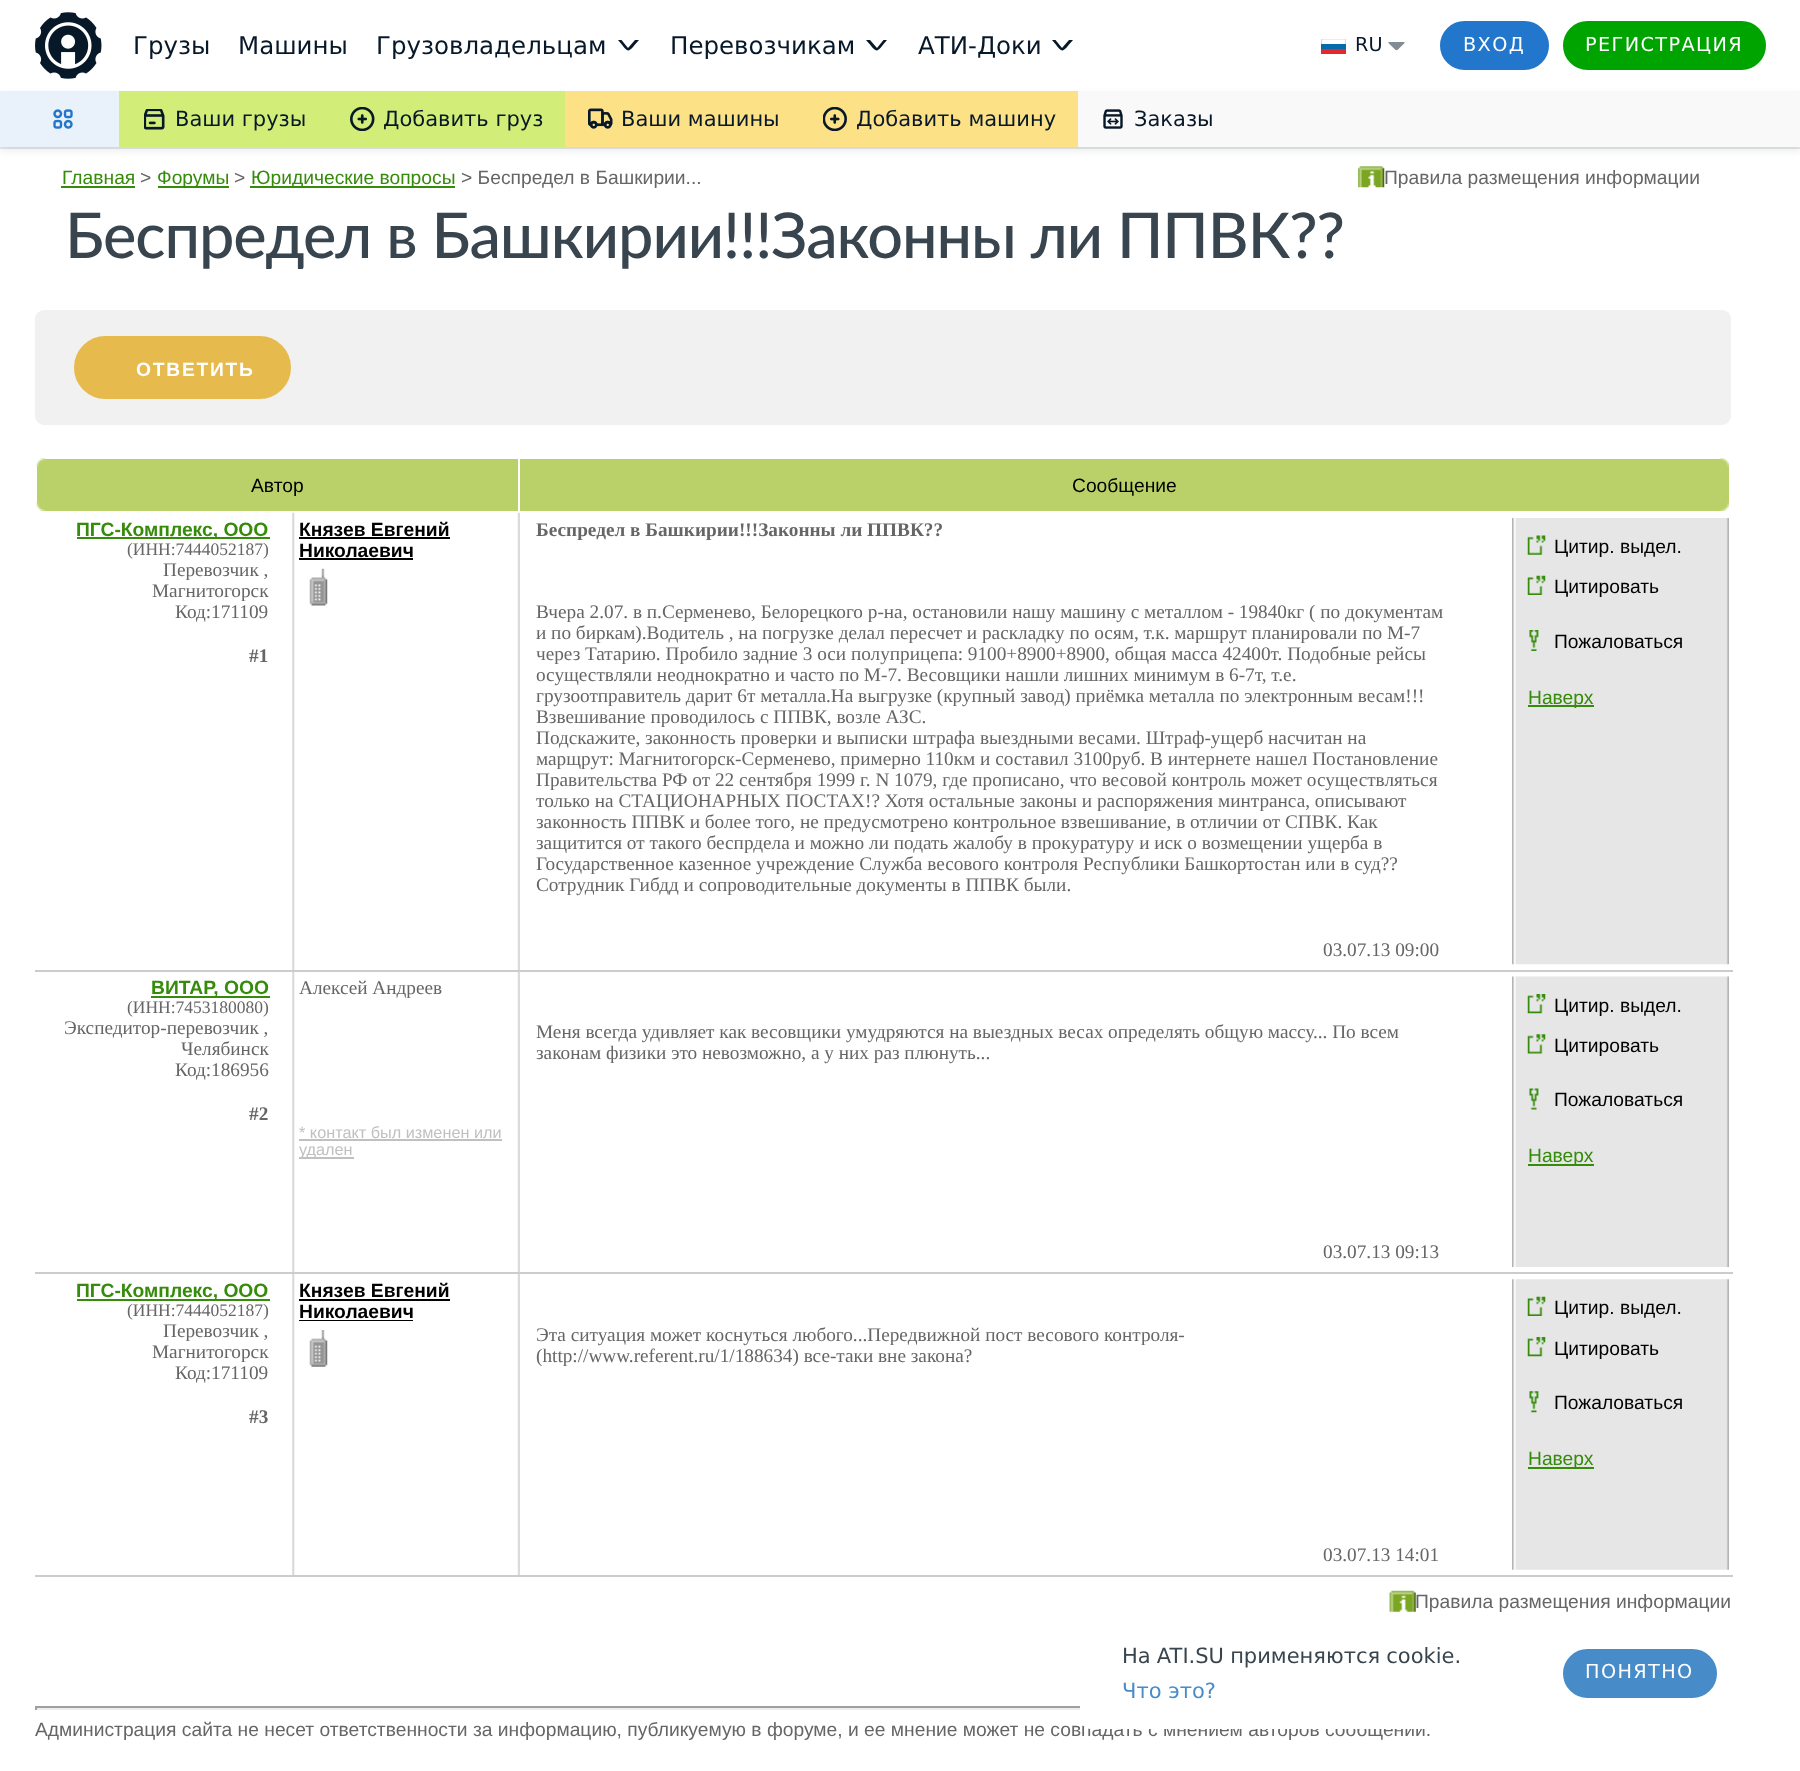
async function draw(canvas) {
  canvas.width = 1800
  canvas.height = 1771
  const ctx = canvas.getContext('2d')
  ctx.miterLimit = 4
  ctx.fontKerning = 'normal'
  async function loadImage(src) {
    const img = new Image()
    img.src = src
    await img.decode()
    return img
  }

  ctx.fillStyle = '#fff'
  ctx.fillRect(0, 0, 1800, 1771)
  ctx.drawImage(await loadImage('image0.png'), 35, 12, 67, 67)
  ctx.font = '24.5px DejaVu Sans'
  ctx.fillStyle = '#071829'
  ctx.fillText('Грузы', 133, 54)
  ctx.fillText('Машины', 238, 54)
  ctx.fillText('Грузовладельцам', 376, 54)
  ctx.beginPath()
  ctx.moveTo(621.5, 40)
  ctx.lineTo(618, 40)
  ctx.bezierCurveTo(630, 54, 626.5, 54, 639, 40)
  ctx.lineTo(635, 40)
  ctx.lineTo(628, 48)
  ctx.closePath()
  ctx.fill('evenodd')
  ctx.fillText('Перевозчикам', 670, 54)
  ctx.beginPath()
  ctx.moveTo(870, 40)
  ctx.lineTo(866, 40)
  ctx.bezierCurveTo(878.5, 54, 875, 54, 887, 40)
  ctx.lineTo(883.5, 40)
  ctx.lineTo(877, 48)
  ctx.closePath()
  ctx.fill('evenodd')
  ctx.fillText('АТИ-Доки', 918, 54)
  ctx.beginPath()
  ctx.moveTo(1055.5, 40)
  ctx.lineTo(1052, 40)
  ctx.bezierCurveTo(1064, 54, 1060.5, 54, 1073, 40)
  ctx.lineTo(1069, 40)
  ctx.lineTo(1062, 48)
  ctx.closePath()
  ctx.fill('evenodd')
  ctx.drawImage(await loadImage('image1.png'), 1321, 39, 25, 15)
  ctx.font = '19.25px DejaVu Sans'
  ctx.fillText('RU', 1355, 51)
  ctx.drawImage(await loadImage('image2.png'), 1388, 42, 17, 9)
  ctx.fillStyle = '#27c'
  ctx.beginPath()
  ctx.roundRect(1441, 22, 107, 47, 23.5)
  ctx.fill()
  ctx.strokeStyle = '#27c'
  ctx.lineWidth = 2
  ctx.stroke()
  ctx.letterSpacing = '1.4px'
  ctx.fillStyle = '#fff'
  ctx.fillText('ВХОД', 1463, 51)
  ctx.fillStyle = '#00a400'
  ctx.beginPath()
  ctx.roundRect(1564, 22, 201, 47, 23.5)
  ctx.fill()
  ctx.strokeStyle = '#00a400'
  ctx.stroke()
  ctx.fillStyle = '#fff'
  ctx.fillText('РЕГИСТРАЦИЯ', 1585, 51)
  ctx.fillStyle = '#e6e8ea'
  ctx.fillRect(0, 147, 1800, 2)
  ctx.fillStyle = '#07182914'
  ctx.filter = 'blur(3.5px)'
  ctx.beginPath()
  ctx.rect(0, 95, 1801, 56)
  ctx.fill()
  ctx.filter = 'none'
  ctx.fillStyle = '#f9f9fa'
  ctx.fillRect(1078, 91, 722, 56)
  ctx.fillStyle = '#e9f1fa'
  ctx.fillRect(0, 91, 119, 56)
  ctx.drawImage(await loadImage('image3.png'), 53, 109, 20, 20)
  ctx.fillStyle = '#d3ee78'
  ctx.fillRect(119, 91, 446, 56)
  ctx.drawImage(await loadImage('image4.png'), 144, 109, 21, 21)
  ctx.letterSpacing = '0px'
  ctx.font = '21px DejaVu Sans'
  ctx.fillStyle = '#071829'
  ctx.fillText('Ваши грузы', 175, 126)
  ctx.drawImage(await loadImage('image5.png'), 350, 107, 25, 24)
  ctx.fillText('Добавить груз', 383, 126)
  ctx.fillStyle = '#fde186'
  ctx.fillRect(565, 91, 513, 56)
  ctx.drawImage(await loadImage('image6.png'), 588, 108, 25, 21)
  ctx.fillStyle = '#071829'
  ctx.fillText('Ваши машины', 621, 126)
  ctx.drawImage(await loadImage('image7.png'), 823, 107, 24, 24)
  ctx.fillText('Добавить машину', 856, 126)
  ctx.drawImage(await loadImage('image8.png'), 1103, 109, 20, 20)
  ctx.fillText('Заказы', 1134, 126)
  ctx.font = '19.25px Liberation Sans'
  ctx.fillStyle = '#666'
  ctx.fillText('Администрация сайта не несет ответственности за информацию, публикуемую в форуме, и ее мнение может не совпадать с мнением авторов сообщений.', 35, 1736)
  ctx.fillStyle = '#fff'
  ctx.beginPath()
  ctx.roundRect(1080, 1617, 679, 112, 11)
  ctx.fill()
  ctx.wordSpacing = '-0.5px'
  ctx.font = '21px DejaVu Sans'
  ctx.fillStyle = '#38444e'
  ctx.fillText('На ATI.SU применяются cookie.', 1122, 1663)
  ctx.wordSpacing = '0px'
  ctx.fillStyle = '#478cc8'
  ctx.fillText('Что это?', 1122, 1698)
  ctx.beginPath()
  ctx.roundRect(1564, 1650, 152, 47, 23.5)
  ctx.fill()
  ctx.strokeStyle = '#478cc8'
  ctx.stroke()
  ctx.letterSpacing = '1.4px'
  ctx.font = '19.25px DejaVu Sans'
  ctx.fillStyle = '#fff'
  ctx.fillText('ПОНЯТНО', 1585, 1678)
  ctx.letterSpacing = '0px'
  ctx.font = '19.25px Liberation Sans'
  ctx.fillStyle = '#358b0a'
  ctx.fillText('Главная', 62, 184)
  ctx.fillRect(61, 186, 74, 2)
  ctx.fillStyle = '#666'
  ctx.fillText('>', 140, 184)
  ctx.fillStyle = '#358b0a'
  ctx.fillRect(158, 186, 71, 2)
  ctx.fillText('Форумы', 157, 184)
  ctx.fillStyle = '#666'
  ctx.fillText('>', 234, 184)
  ctx.fillStyle = '#358b0a'
  ctx.fillRect(250, 186, 205, 2)
  ctx.fillText('Юридические вопросы', 251, 184)
  ctx.fillStyle = '#666'
  ctx.fillText('> Беспредел в Башкирии...', 461, 184)
  ctx.drawImage(await loadImage('image9.png'), 1358, 166, 27, 22)
  ctx.fillText('Правила размещения информации', 1384, 184)
  ctx.letterSpacing = '-1.05px'
  ctx.font = '500 63px Lato'
  ctx.fillStyle = '#38444e'
  ctx.fillText('Беспредел в Башкирии!!!Законны ли ППВК??', 65, 258)
  ctx.fillStyle = '#f1f1f1'
  ctx.beginPath()
  ctx.roundRect(35, 310, 1696, 115, 9)
  ctx.fill()
  ctx.fillStyle = '#e6ba4d'
  ctx.beginPath()
  ctx.roundRect(75, 337, 215, 61, 30.5)
  ctx.fill()
  ctx.strokeStyle = '#e6ba4d'
  ctx.stroke()
  ctx.letterSpacing = '1.75px'
  ctx.font = 'bold 19.25px Liberation Sans'
  ctx.fillStyle = '#fff'
  ctx.fillText('ОТВЕТИТЬ', 136, 376)
  ctx.fillStyle = '#bad169'
  ctx.fillRect(37, 459, 481, 52)
  ctx.drawImage(await loadImage('image10.png'), 36, 458, 10, 10)
  ctx.drawImage(await loadImage('image11.png'), 36, 502, 10, 9)
  ctx.letterSpacing = '0px'
  ctx.font = '19.25px Liberation Sans'
  ctx.fillStyle = '#000'
  ctx.fillText('Автор', 251, 492)
  ctx.fillStyle = '#bad169'
  ctx.fillRect(520, 459, 1209, 52)
  ctx.fillStyle = '#000'
  ctx.fillText('Сообщение', 1072, 492)
  ctx.drawImage(await loadImage('image12.png'), 1720, 458, 9, 9)
  ctx.drawImage(await loadImage('image13.png'), 1720, 502, 9, 9)
  ctx.drawImage(await loadImage('image14.png'), 292, 512, 228, 458)
  ctx.fillStyle = '#ccc'
  ctx.fillRect(35, 970, 1698, 2)
  ctx.drawImage(await loadImage('image15.png'), 1512, 518, 217, 447)
  ctx.fillStyle = '#358b0a'
  ctx.fillRect(77, 537, 193, 2)
  ctx.font = 'bold 19.25px Liberation Sans'
  ctx.fillText('ПГС-Комплекс, ООО', 76, 536)
  ctx.font = '17.5px Liberation Serif'
  ctx.fillStyle = '#666'
  ctx.fillText('(ИНН:7444052187)', 127, 555)
  ctx.font = '19.25px Liberation Serif'
  ctx.fillText('Перевозчик ,', 163, 576)
  ctx.fillText('Магнитогорск', 152, 597)
  ctx.fillText('Код:171109', 175, 618)
  ctx.font = 'bold 19.25px Liberation Serif'
  ctx.fillText('#1', 249, 662)
  ctx.font = 'bold 19.25px Liberation Sans'
  ctx.fillStyle = '#000'
  ctx.fillText('Князев Евгений', 299, 536)
  ctx.fillRect(299, 537, 151, 2)
  ctx.fillText('Николаевич', 299, 557)
  ctx.fillRect(299, 558, 114, 2)
  ctx.drawImage(await loadImage('image16.png'), 309, 568, 19, 38)
  ctx.font = 'bold 19.25px Liberation Serif'
  ctx.fillStyle = '#666'
  ctx.fillText('Беспредел в Башкирии!!!Законны ли ППВК??', 536, 536)
  ctx.font = '19.25px Liberation Serif'
  ctx.fillText('Вчера 2.07. в п.Серменево, Белорецкого р-на, остановили нашу машину с металлом - 19840кг ( по документам', 536, 618)
  ctx.fillText('и по биркам).Водитель , на погрузке делал пересчет и раскладку по осям, т.к. маршрут планировали по М-7', 536, 639)
  ctx.fillText('через Татарию. Пробило задние 3 оси полуприцепа: 9100+8900+8900, общая масса 42400т. Подобные рейсы', 536, 660)
  ctx.fillText('осуществляли неоднократно и часто по М-7. Весовщики нашли лишних минимум в 6-7т, т.е.', 536, 681)
  ctx.fillText('грузоотправитель дарит 6т металла.На выгрузке (крупный завод) приёмка металла по электронным весам!!!', 536, 702)
  ctx.fillText('Взвешивание проводилось с ППВК, возле АЗС.', 536, 723)
  ctx.fillText('Подскажите, законность проверки и выписки штрафа выездными весами. Штраф-ущерб насчитан на', 536, 744)
  ctx.fillText('марщрут: Магнитогорск-Серменево, примерно 110км и составил 3100руб. В интернете нашел Постановление', 536, 765)
  ctx.fillText('Правительства РФ от 22 сентября 1999 г. N 1079, где прописано, что весовой контроль может осуществляться', 536, 786)
  ctx.fillText('только на СТАЦИОНАРНЫХ ПОСТАХ!? Хотя остальные законы и распоряжения минтранса, описывают', 536, 807)
  ctx.fillText('законность ППВК и более того, не предусмотрено контрольное взвешивание, в отличии от СПВК. Как', 536, 828)
  ctx.fillText('защитится от такого беспрдела и можно ли подать жалобу в прокуратуру и иск о возмещении ущерба в', 536, 849)
  ctx.fillText('Государственное казенное учреждение Служба весового контроля Республики Башкортостан или в суд??', 536, 870)
  ctx.fillText('Сотрудник Гибдд и сопроводительные документы в ППВК были.', 536, 891)
  ctx.drawImage(await loadImage('image17.png'), 1527, 535, 19, 20)
  ctx.font = '19.25px Liberation Sans'
  ctx.fillStyle = '#000'
  ctx.fillText('Цитир. выдел.', 1554, 553)
  ctx.drawImage(await loadImage('image18.png'), 1527, 575, 19, 20)
  ctx.fillText('Цитировать', 1554, 593)
  ctx.drawImage(await loadImage('image19.png'), 1529, 630, 10, 21)
  ctx.fillText('Пожаловаться', 1554, 648)
  ctx.fillStyle = '#358b0a'
  ctx.fillRect(1528, 705, 66, 2)
  ctx.fillText('Наверх', 1528, 704)
  ctx.font = '19.25px Liberation Serif'
  ctx.fillStyle = '#666'
  ctx.fillText('03.07.13 09:00', 1323, 956)
  ctx.drawImage(await loadImage('image20.png'), 292, 972, 228, 300)
  ctx.fillStyle = '#ccc'
  ctx.fillRect(35, 1272, 1698, 2)
  ctx.drawImage(await loadImage('image21.png'), 1512, 976, 217, 291)
  ctx.fillStyle = '#358b0a'
  ctx.fillRect(151, 996, 119, 2)
  ctx.font = 'bold 19.25px Liberation Sans'
  ctx.fillText('ВИТАР, ООО', 151, 994)
  ctx.font = '17.5px Liberation Serif'
  ctx.fillStyle = '#666'
  ctx.fillText('(ИНН:7453180080)', 127, 1013)
  ctx.font = '19.25px Liberation Serif'
  ctx.fillText('Экспедитор-перевозчик ,', 64, 1034)
  ctx.fillText('Челябинск', 181, 1055)
  ctx.fillText('Код:186956', 175, 1076)
  ctx.font = 'bold 19.25px Liberation Serif'
  ctx.fillText('#2', 249, 1120)
  ctx.save()
  ctx.beginPath()
  ctx.rect(299, 977, 189, 21)
  ctx.clip()
  ctx.font = '19.25px Liberation Serif'
  ctx.fillText('Алексей Андреев', 299, 994)
  ctx.restore()
  ctx.font = '16.25px Liberation Sans'
  ctx.fillStyle = '#c0c0c0'
  ctx.fillText('* контакт был изменен или', 299, 1138)
  ctx.fillRect(299, 1139, 203, 2)
  ctx.fillRect(299, 1157, 55, 2)
  ctx.fillText('удален', 299, 1155)
  ctx.font = '19.25px Liberation Serif'
  ctx.fillStyle = '#666'
  ctx.fillText('Меня всегда удивляет как весовщики умудряются на выездных весах определять общую массу... По всем', 536, 1038)
  ctx.fillText('законам физики это невозможно, а у них раз плюнуть...', 536, 1059)
  ctx.drawImage(await loadImage('image22.png'), 1527, 994, 19, 20)
  ctx.font = '19.25px Liberation Sans'
  ctx.fillStyle = '#000'
  ctx.fillText('Цитир. выдел.', 1554, 1012)
  ctx.drawImage(await loadImage('image23.png'), 1527, 1034, 19, 20)
  ctx.fillText('Цитировать', 1554, 1052)
  ctx.drawImage(await loadImage('image24.png'), 1529, 1088, 10, 22)
  ctx.fillText('Пожаловаться', 1554, 1106)
  ctx.fillStyle = '#358b0a'
  ctx.fillRect(1528, 1164, 66, 2)
  ctx.fillText('Наверх', 1528, 1162)
  ctx.font = '19.25px Liberation Serif'
  ctx.fillStyle = '#666'
  ctx.fillText('03.07.13 09:13', 1323, 1258)
  ctx.drawImage(await loadImage('image25.png'), 292, 1274, 228, 301)
  ctx.fillStyle = '#ccc'
  ctx.fillRect(35, 1575, 1698, 2)
  ctx.drawImage(await loadImage('image26.png'), 1512, 1279, 217, 291)
  ctx.fillStyle = '#358b0a'
  ctx.fillRect(77, 1299, 193, 2)
  ctx.font = 'bold 19.25px Liberation Sans'
  ctx.fillText('ПГС-Комплекс, ООО', 76, 1297)
  ctx.font = '17.5px Liberation Serif'
  ctx.fillStyle = '#666'
  ctx.fillText('(ИНН:7444052187)', 127, 1316)
  ctx.font = '19.25px Liberation Serif'
  ctx.fillText('Перевозчик ,', 163, 1337)
  ctx.fillText('Магнитогорск', 152, 1358)
  ctx.fillText('Код:171109', 175, 1379)
  ctx.font = 'bold 19.25px Liberation Serif'
  ctx.fillText('#3', 249, 1423)
  ctx.font = 'bold 19.25px Liberation Sans'
  ctx.fillStyle = '#000'
  ctx.fillText('Князев Евгений', 299, 1297)
  ctx.fillRect(299, 1299, 151, 2)
  ctx.fillText('Николаевич', 299, 1318)
  ctx.fillRect(299, 1320, 114, 1)
  ctx.drawImage(await loadImage('image27.png'), 309, 1330, 19, 37)
  ctx.font = '19.25px Liberation Serif'
  ctx.fillStyle = '#666'
  ctx.fillText('Эта ситуация может коснуться любого...Передвижной пост весового контроля-', 536, 1341)
  ctx.fillText('(http://www.referent.ru/1/188634) все-таки вне закона?', 536, 1362)
  ctx.drawImage(await loadImage('image18.png'), 1527, 1296, 19, 20)
  ctx.font = '19.25px Liberation Sans'
  ctx.fillStyle = '#000'
  ctx.fillText('Цитир. выдел.', 1554, 1314)
  ctx.drawImage(await loadImage('image22.png'), 1527, 1337, 19, 20)
  ctx.fillText('Цитировать', 1554, 1355)
  ctx.drawImage(await loadImage('image28.png'), 1529, 1391, 10, 22)
  ctx.fillText('Пожаловаться', 1554, 1409)
  ctx.fillStyle = '#358b0a'
  ctx.fillRect(1528, 1467, 66, 2)
  ctx.fillText('Наверх', 1528, 1465)
  ctx.font = '19.25px Liberation Serif'
  ctx.fillStyle = '#666'
  ctx.fillText('03.07.13 14:01', 1323, 1561)
  ctx.drawImage(await loadImage('image29.png'), 1389, 1590, 27, 22)
  ctx.font = '19.25px Liberation Sans'
  ctx.fillText('Правила размещения информации', 1415, 1608)
  ctx.fillStyle = '#9f9f9f'
  ctx.fillRect(35, 1706, 1045, 2)
  ctx.fillStyle = '#eee'
  ctx.fillRect(35, 1708, 1045, 2)
  ctx.fillStyle = '#9f9f9f'
  ctx.fillRect(35, 1706, 2, 4)
}

draw(document.querySelector('canvas'))
